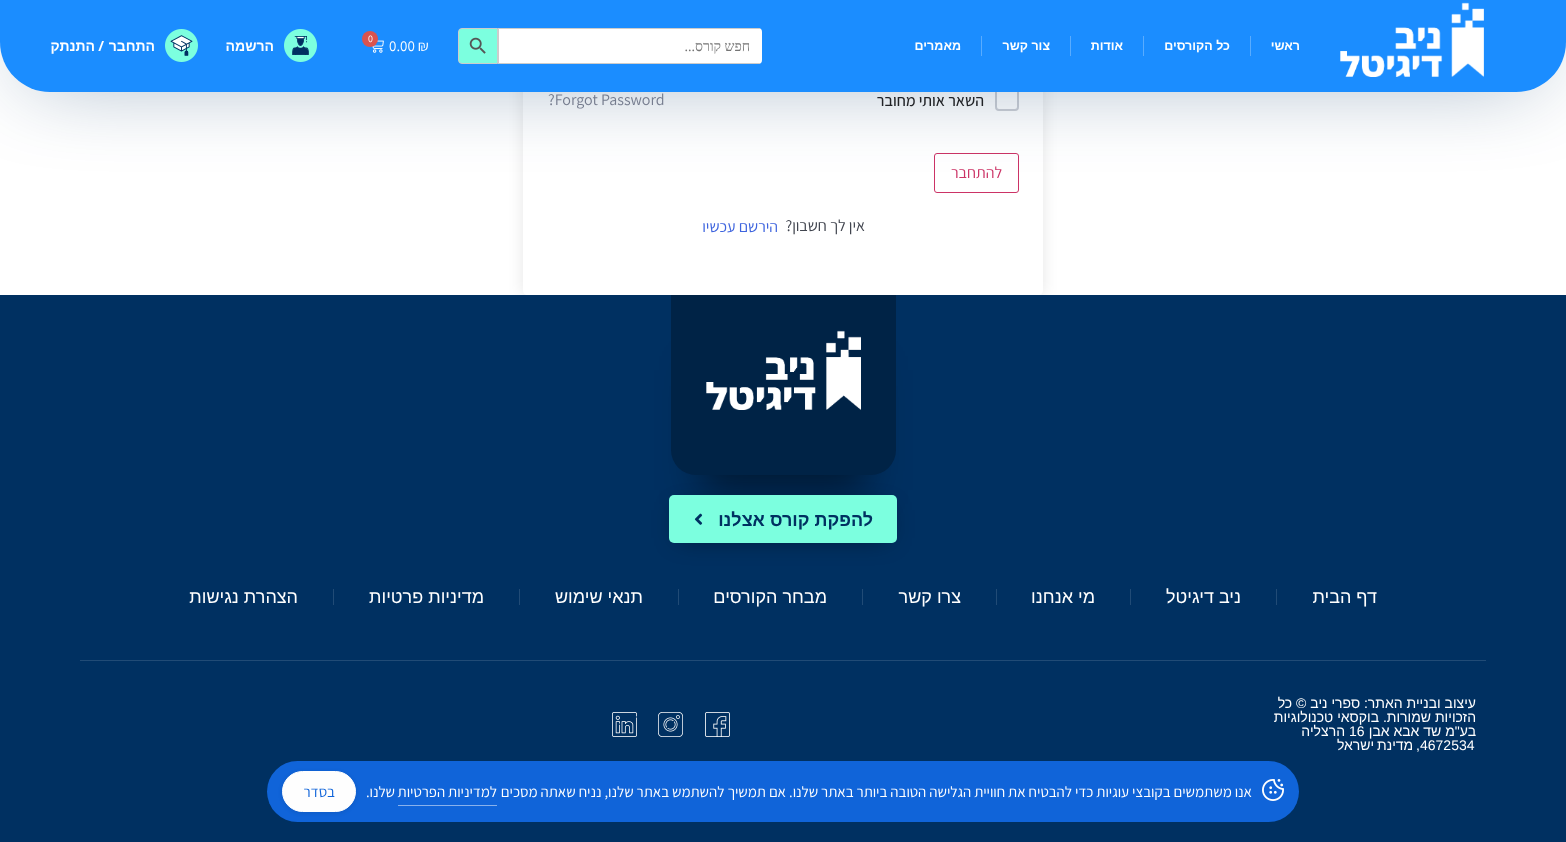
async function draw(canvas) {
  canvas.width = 1566
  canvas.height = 842
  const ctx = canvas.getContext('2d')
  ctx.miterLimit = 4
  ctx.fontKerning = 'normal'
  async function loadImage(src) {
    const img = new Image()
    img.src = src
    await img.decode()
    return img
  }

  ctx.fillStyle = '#fff'
  ctx.fillRect(0, 0, 1566, 842)
  ctx.save()
  ctx.beginPath()
  ctx.moveTo(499, 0)
  ctx.lineTo(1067, 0)
  ctx.lineTo(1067, 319)
  ctx.lineTo(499, 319)
  ctx.closePath()
  ctx.moveTo(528, -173)
  ctx.lineTo(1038, -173)
  ctx.bezierCurveTo(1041, -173, 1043, -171, 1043, -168)
  ctx.lineTo(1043, 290)
  ctx.bezierCurveTo(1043, 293, 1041, 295, 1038, 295)
  ctx.lineTo(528, 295)
  ctx.bezierCurveTo(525, 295, 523, 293, 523, 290)
  ctx.lineTo(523, -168)
  ctx.bezierCurveTo(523, -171, 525, -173, 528, -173)
  ctx.closePath()
  ctx.clip('evenodd')
  ctx.fillStyle = '#0000001a'
  ctx.filter = 'blur(7.5px)'
  ctx.beginPath()
  ctx.roundRect(523, -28, 520, 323, 5)
  ctx.fill()
  ctx.filter = 'none'
  ctx.restore()
  ctx.beginPath()
  ctx.roundRect(996, 88, 22, 22, 3)
  ctx.strokeStyle = '#cdcfd5'
  ctx.lineWidth = 2
  ctx.stroke()
  ctx.beginPath()
  ctx.roundRect(934.5, 153.5, 84, 39, 2.5)
  ctx.strokeStyle = '#c36'
  ctx.lineWidth = 1
  ctx.stroke()
  ctx.fillStyle = '#0030619e'
  ctx.filter = 'blur(45px)'
  ctx.beginPath()
  ctx.roundRect(25, 25, 1516, 42, 25)
  ctx.fill()
  ctx.filter = 'none'
  ctx.fillStyle = '#1b8dff'
  ctx.beginPath()
  ctx.roundRect(0, 0, 1566, 92, [0, 0, 50, 50])
  ctx.fill()
  ctx.drawImage(await loadImage('image0.png'), 1340, 2, 144, 75)
  ctx.direction = 'rtl'
  ctx.font = 'bold 12.5px Liberation Sans'
  ctx.fillStyle = '#fff'
  ctx.fillText('ראשי', 1300, 50)
  ctx.fillStyle = '#59acff'
  ctx.fillRect(1250, 36, 1, 20)
  ctx.fillStyle = '#fff'
  ctx.fillText('כל הקורסים', 1230, 50)
  ctx.fillStyle = '#59acff'
  ctx.fillRect(1143, 36, 1, 20)
  ctx.fillStyle = '#fff'
  ctx.fillText('אודות', 1123, 50)
  ctx.fillStyle = '#59acff'
  ctx.fillRect(1070, 36, 1, 20)
  ctx.fillStyle = '#fff'
  ctx.fillText('צור קשר', 1050, 50)
  ctx.fillStyle = '#59acff'
  ctx.fillRect(981, 36, 1, 20)
  ctx.fillStyle = '#fff'
  ctx.fillText('מאמרים', 961, 50)
  ctx.beginPath()
  ctx.roundRect(498, 28, 264, 36, [0, 4, 4, 0])
  ctx.fill()
  ctx.fillStyle = '#ccc'
  ctx.fillRect(498, 28, 262, 1)
  ctx.fillRect(498, 63, 262, 1)
  ctx.fillRect(498, 28, 1, 36)
  ctx.font = '14px Liberation Serif'
  ctx.fillStyle = '#757575'
  ctx.fillText('חפש קורס...', 750, 51)
  ctx.fillStyle = '#7cffdf'
  ctx.beginPath()
  ctx.roundRect(458.5, 28.5, 39, 35, [3.5, 0, 0, 3.5])
  ctx.fill()
  ctx.strokeStyle = '#ccc'
  ctx.stroke()
  ctx.drawImage(await loadImage('image1.png'), 469, 37, 17, 17)
  ctx.drawImage(await loadImage('image2.png'), 372, 40, 12, 13)
  ctx.fillStyle = '#d9534f'
  ctx.beginPath()
  ctx.arc(370, 39, 8, 0, 2 * Math.PI)
  ctx.fill()
  ctx.direction = 'ltr'
  ctx.font = '10px Assistant'
  ctx.fillStyle = '#fff'
  ctx.fillText('0', 368, 42)
  ctx.font = '15px Assistant'
  ctx.fillText('0.00 ₪', 389, 51)
  ctx.drawImage(await loadImage('image3.png'), 284, 29, 33, 33)
  ctx.direction = 'rtl'
  ctx.font = 'bold 14px Liberation Sans'
  ctx.fillText('הרשמה', 274, 51)
  ctx.drawImage(await loadImage('image4.png'), 165, 29, 33, 33)
  ctx.fillText('התחבר', 155, 51)
  ctx.font = 'bold 14px Noto Sans Hebrew'
  ctx.fillText('/', 104, 51)
  ctx.font = 'bold 14px Liberation Sans'
  ctx.fillText('התנתק', 95, 51)
  ctx.font = '500 16px Assistant'
  ctx.fillStyle = '#212327'
  ctx.fillText('השאר אותי מחובר', 984, 106)
  ctx.direction = 'ltr'
  ctx.font = '16px Assistant'
  ctx.fillStyle = '#757c8e'
  ctx.fillText('?Forgot Password', 548, 105)
  ctx.direction = 'rtl'
  ctx.fillStyle = '#c36'
  ctx.fillText('להתחבר', 1002, 178)
  ctx.fillStyle = '#41454f'
  ctx.fillText('אין לך חשבון?', 865, 231)
  ctx.fillStyle = '#3e64de'
  ctx.fillText('הירשם עכשיו', 778, 232)
  ctx.fillStyle = '#003061'
  ctx.fillRect(0, 295, 1566, 547)
  ctx.fillStyle = '#00000080'
  ctx.filter = 'blur(20px)'
  ctx.beginPath()
  ctx.rect(701, 370, 165, 120)
  ctx.fill()
  ctx.filter = 'none'
  ctx.fillStyle = '#002346'
  ctx.beginPath()
  ctx.roundRect(671, 295, 225, 180, [0, 0, 25, 25])
  ctx.fill()
  ctx.drawImage(await loadImage('image5.png'), 706, 330, 155, 80)
  ctx.fillStyle = '#00000080'
  ctx.filter = 'blur(12.5px)'
  ctx.beginPath()
  ctx.rect(679, 510, 208, 28)
  ctx.fill()
  ctx.filter = 'none'
  ctx.fillStyle = '#7cffdf'
  ctx.beginPath()
  ctx.roundRect(669, 495, 228, 48, 5)
  ctx.fill()
  ctx.font = 'bold 18px Liberation Sans'
  ctx.fillStyle = '#003061'
  ctx.fillText('להפקת קורס אצלנו', 873, 526)
  ctx.drawImage(await loadImage('image6.png'), 694, 513, 9, 12)
  ctx.font = '18px Liberation Sans'
  ctx.fillStyle = '#fff'
  ctx.fillText('דף הבית', 1377, 603)
  ctx.fillStyle = '#214b76'
  ctx.fillRect(1276, 589, 1, 16)
  ctx.fillStyle = '#fff'
  ctx.fillText('ניב דיגיטל', 1241, 603)
  ctx.fillStyle = '#214b76'
  ctx.fillRect(1130, 589, 1, 16)
  ctx.fillStyle = '#fff'
  ctx.fillText('מי אנחנו', 1095, 603)
  ctx.fillStyle = '#214b76'
  ctx.fillRect(996, 589, 1, 16)
  ctx.fillStyle = '#fff'
  ctx.fillText('צרו קשר', 961, 603)
  ctx.fillStyle = '#214b76'
  ctx.fillRect(862, 589, 1, 16)
  ctx.fillStyle = '#fff'
  ctx.fillText('מבחר הקורסים', 827, 603)
  ctx.fillStyle = '#214b76'
  ctx.fillRect(678, 589, 1, 16)
  ctx.fillStyle = '#fff'
  ctx.fillText('תנאי שימוש', 643, 603)
  ctx.fillStyle = '#214b76'
  ctx.fillRect(519, 589, 1, 16)
  ctx.fillStyle = '#fff'
  ctx.fillText('מדיניות פרטיות', 484, 603)
  ctx.fillStyle = '#214b76'
  ctx.fillRect(333, 589, 1, 16)
  ctx.fillStyle = '#fff'
  ctx.fillText('הצהרת נגישות', 298, 603)
  ctx.fillStyle = '#214b76'
  ctx.fillRect(80, 660, 1406, 1)
  ctx.font = '14px Liberation Sans'
  ctx.fillStyle = '#fff'
  ctx.fillText('עיצוב ובניית האתר: ספרי ניב © כל', 1476, 708)
  ctx.fillText('הזכויות שמורות. בוקסאי טכנולוגיות', 1476, 722)
  ctx.fillText('בע"מ שד אבא אבן', 1476, 736)
  ctx.direction = 'ltr'
  ctx.fillText('16', 1349, 736)
  ctx.direction = 'rtl'
  ctx.fillText('הרצליה', 1345, 736)
  ctx.direction = 'ltr'
  ctx.fillText('4672534', 1420, 750)
  ctx.wordSpacing = '-1px'
  ctx.direction = 'rtl'
  ctx.fillText(', מדינת ישראל', 1420, 750)
  ctx.drawImage(await loadImage('image7.png'), 705, 712, 25, 25)
  ctx.drawImage(await loadImage('image8.png'), 658, 712, 25, 25)
  ctx.drawImage(await loadImage('image9.png'), 612, 712, 25, 25)
  ctx.fillStyle = '#1064d9'
  ctx.beginPath()
  ctx.roundRect(267, 761, 1032, 61, 30.5)
  ctx.fill()
  ctx.drawImage(await loadImage('image10.png'), 1262, 779, 22, 22)
  ctx.wordSpacing = '0px'
  ctx.font = '15px Assistant'
  ctx.fillStyle = '#fff'
  ctx.fillText('אנו משתמשים בקובצי עוגיות כדי להבטיח את חוויית הגלישה הטובה ביותר באתר שלנו. אם תמשיך להשתמש באתר שלנו, נניח שאתה מסכים', 1252, 797)
  ctx.fillText('למדיניות הפרטיות', 497, 797)
  ctx.fillStyle = '#88b1ec'
  ctx.fillRect(398, 805, 99, 1)
  ctx.fillStyle = '#fff'
  ctx.fillText('שלנו.', 395, 797)
  ctx.fillStyle = '#0000001a'
  ctx.filter = 'blur(2px)'
  ctx.beginPath()
  ctx.roundRect(282, 772, 74, 41, 20.5)
  ctx.fill()
  ctx.filter = 'none'
  ctx.fillStyle = '#fefefe'
  ctx.beginPath()
  ctx.roundRect(282.5, 771.5, 73, 40, 20)
  ctx.fill()
  ctx.strokeStyle = '#fefefe'
  ctx.stroke()
  ctx.fillStyle = '#1064d9'
  ctx.fillText('בסדר', 335, 797)
}

draw(document.querySelector('canvas'))
